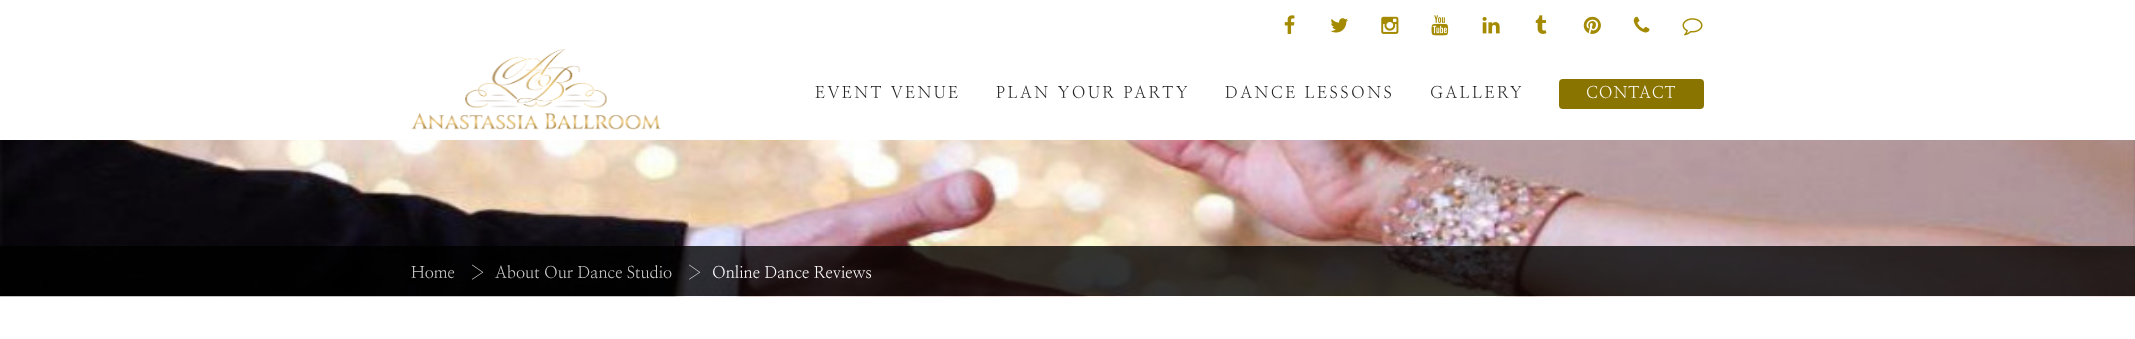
async function draw(canvas) {
  canvas.width = 2135
  canvas.height = 339
  const ctx = canvas.getContext('2d')
  ctx.miterLimit = 4
  ctx.fontKerning = 'normal'
  async function loadImage(src) {
    const img = new Image()
    img.src = src
    await img.decode()
    return img
  }

  ctx.fillStyle = '#fff'
  ctx.fillRect(0, 0, 2135, 339)
  ctx.drawImage(await loadImage('image0.png'), 1284, 15, 11, 19)
  ctx.drawImage(await loadImage('image1.png'), 1330, 18, 18, 15)
  ctx.drawImage(await loadImage('image2.png'), 1381, 16, 18, 18)
  ctx.drawImage(await loadImage('image3.png'), 1431, 15, 18, 21)
  ctx.drawImage(await loadImage('image4.png'), 1482, 17, 18, 17)
  ctx.drawImage(await loadImage('image5.png'), 1535, 15, 12, 19)
  ctx.drawImage(await loadImage('image6.png'), 1583, 16, 18, 18)
  ctx.drawImage(await loadImage('image7.png'), 1633, 16, 17, 17)
  ctx.drawImage(await loadImage('image8.png'), 1682, 18, 21, 18)
  ctx.drawImage(await loadImage('image9.png'), 411, 48, 250, 82)
  ctx.letterSpacing = '2.5px'
  ctx.font = '16.25px NanumMyeongjo'
  ctx.fillStyle = '#222'
  ctx.fillText('EVENT VENUE', 815, 98)
  ctx.fillText('PLAN YOUR PARTY', 996, 98)
  ctx.fillText('DANCE LESSONS', 1225, 98)
  ctx.fillText('GALLERY', 1430, 98)
  ctx.fillStyle = '#8a7400'
  ctx.beginPath()
  ctx.roundRect(1559, 79, 145, 30, 4)
  ctx.fill()
  ctx.letterSpacing = '1px'
  ctx.fillStyle = '#fff'
  ctx.fillText('CONTACT', 1586, 98)
  ctx.drawImage(await loadImage('image10.png'), 0, 140, 2135, 157)
  ctx.fillStyle = '#000000cc'
  ctx.fillRect(0, 246, 2135, 50)
  ctx.letterSpacing = '0px'
  ctx.fillStyle = '#ccc'
  ctx.fillText('Home', 411, 278)
  ctx.fillText('›', 470, 278)
  ctx.fillText('About Our Dance Studio', 495, 278)
  ctx.fillText('›', 687, 278)
  ctx.fillStyle = '#fff'
  ctx.fillText('Online Dance Reviews', 712, 278)
}

draw(document.querySelector('canvas'))
